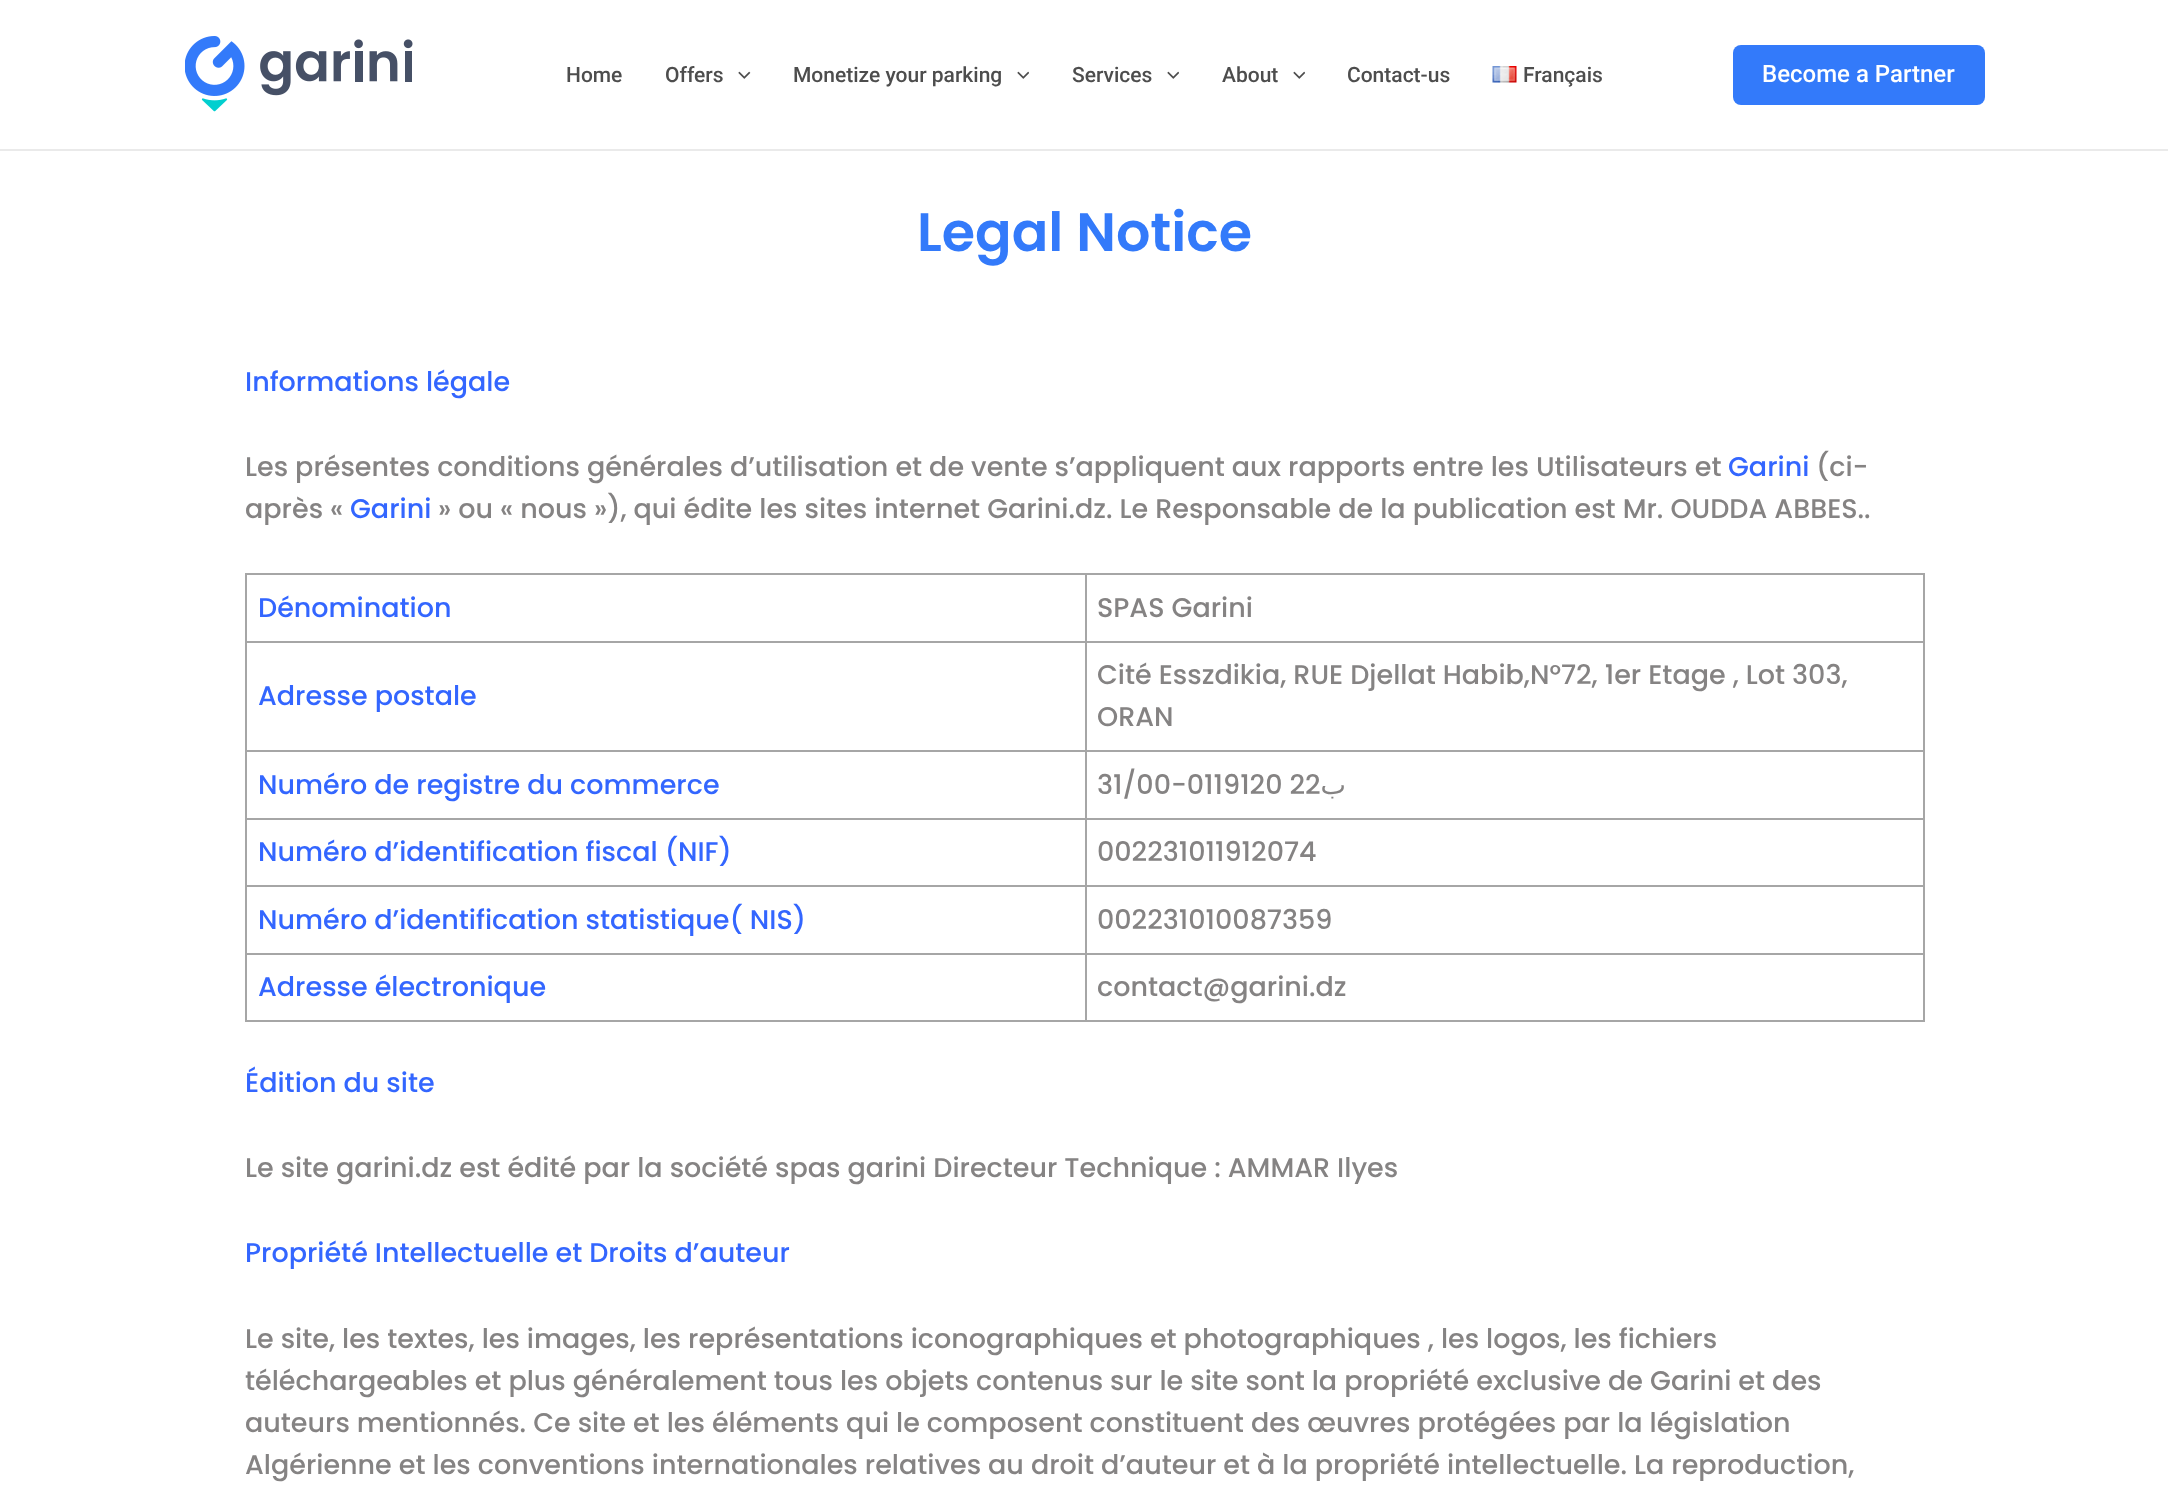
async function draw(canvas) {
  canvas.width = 2168
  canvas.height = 1487
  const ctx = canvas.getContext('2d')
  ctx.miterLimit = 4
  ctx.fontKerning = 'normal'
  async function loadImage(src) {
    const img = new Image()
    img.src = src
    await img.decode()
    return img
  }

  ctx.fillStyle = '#fff'
  ctx.fillRect(0, 0, 2168, 1487)
  ctx.fillStyle = '#eaeaea'
  ctx.fillRect(0, 149, 2168, 2)
  ctx.drawImage(await loadImage('image0.png'), 185, 36, 228, 76)
  ctx.font = '500 21px Roboto'
  ctx.fillStyle = '#4d4d4d'
  ctx.fillText('Home', 566, 82)
  ctx.fillText('Offers', 665, 82)
  ctx.drawImage(await loadImage('image1.png'), 738, 71, 13, 8)
  ctx.fillText('Monetize your parking', 793, 82)
  ctx.drawImage(await loadImage('image2.png'), 1017, 71, 12, 8)
  ctx.fillText('Services', 1072, 82)
  ctx.drawImage(await loadImage('image2.png'), 1167, 71, 12, 8)
  ctx.fillText('About', 1222, 82)
  ctx.drawImage(await loadImage('image2.png'), 1293, 71, 12, 8)
  ctx.fillText('Contact-us', 1347, 82)
  ctx.drawImage(await loadImage('image3.png'), 1492, 66, 25, 17)
  ctx.fillText('Français', 1523, 82)
  ctx.fillStyle = '#337afa'
  ctx.beginPath()
  ctx.roundRect(1733, 45, 252, 60, 8)
  ctx.fill()
  ctx.font = '500 24px Roboto'
  ctx.fillStyle = '#fff'
  ctx.fillText('Become a Partner', 1762, 82)
  ctx.font = '600 54px Poppins'
  ctx.fillStyle = '#337afa'
  ctx.fillText('Legal Notice', 917, 251)
  ctx.font = '500 27px Poppins'
  ctx.fillStyle = '#36f'
  ctx.fillText('Informations légale', 245, 391)
  ctx.fillStyle = '#858383'
  ctx.fillText('Les présentes conditions générales d’utilisation et de vente s’appliquent aux rapports entre les Utilisateurs et', 245, 476)
  ctx.fillStyle = '#36f'
  ctx.fillText('Garini', 1728, 476)
  ctx.fillStyle = '#858383'
  ctx.fillText('(ci-', 1816, 476)
  ctx.fillText('après «', 245, 518)
  ctx.fillStyle = '#36f'
  ctx.fillText('Garini', 350, 518)
  ctx.fillStyle = '#858383'
  ctx.fillText('» ou « nous »), qui édite les sites internet Garini.dz. Le Responsable de la publication est Mr. OUDDA ABBES..', 438, 518)
  ctx.fillStyle = '#a6a6a6'
  ctx.fillRect(245, 573, 1680, 2)
  ctx.fillRect(245, 573, 2, 449)
  ctx.fillRect(1923, 573, 2, 449)
  ctx.fillRect(1085, 1020, 840, 2)
  ctx.fillRect(1085, 953, 2, 69)
  ctx.fillRect(1085, 953, 840, 2)
  ctx.fillRect(1085, 885, 2, 69)
  ctx.fillRect(1085, 885, 840, 2)
  ctx.fillRect(1085, 818, 2, 69)
  ctx.fillRect(1085, 818, 840, 2)
  ctx.fillRect(1085, 750, 2, 69)
  ctx.fillRect(1085, 750, 840, 2)
  ctx.fillRect(1085, 641, 2, 111)
  ctx.fillRect(1085, 641, 840, 2)
  ctx.fillRect(1085, 573, 2, 69)
  ctx.fillRect(245, 641, 841, 2)
  ctx.fillStyle = '#36f'
  ctx.fillText('Dénomination', 258, 617)
  ctx.fillStyle = '#858383'
  ctx.fillText('SPAS Garini', 1097, 617)
  ctx.fillStyle = '#a6a6a6'
  ctx.fillRect(245, 750, 841, 2)
  ctx.fillStyle = '#36f'
  ctx.fillText('Adresse postale', 258, 705)
  ctx.fillStyle = '#858383'
  ctx.fillText('Cité Esszdikia, RUE Djellat Habib,N°72, 1er Etage , Lot 303,', 1097, 684)
  ctx.fillText('ORAN', 1097, 726)
  ctx.fillStyle = '#a6a6a6'
  ctx.fillRect(245, 818, 841, 2)
  ctx.fillStyle = '#36f'
  ctx.fillText('Numéro de registre du commerce', 258, 794)
  ctx.fillStyle = '#858383'
  ctx.fillText('31/00-0119120 22', 1097, 794)
  ctx.direction = 'rtl'
  ctx.font = '27px DejaVu Sans'
  ctx.fillText('ب', 1346, 794)
  ctx.fillStyle = '#a6a6a6'
  ctx.fillRect(245, 885, 841, 2)
  ctx.direction = 'ltr'
  ctx.font = '500 27px Poppins'
  ctx.fillStyle = '#36f'
  ctx.fillText('Numéro d’identification fiscal (NIF)', 258, 861)
  ctx.fillStyle = '#858383'
  ctx.fillText('002231011912074', 1097, 861)
  ctx.fillStyle = '#a6a6a6'
  ctx.fillRect(245, 953, 841, 2)
  ctx.fillStyle = '#36f'
  ctx.fillText('Numéro d’identification statistique( NIS)', 258, 929)
  ctx.fillStyle = '#858383'
  ctx.fillText('002231010087359', 1097, 929)
  ctx.fillStyle = '#a6a6a6'
  ctx.fillRect(245, 1020, 841, 2)
  ctx.fillStyle = '#36f'
  ctx.fillText('Adresse électronique', 258, 996)
  ctx.fillStyle = '#858383'
  ctx.fillText('contact@garini.dz', 1097, 996)
  ctx.fillStyle = '#36f'
  ctx.fillText('Édition du site', 245, 1092)
  ctx.fillStyle = '#858383'
  ctx.fillText('Le site garini.dz est édité par la société spas garini Directeur Technique : AMMAR Ilyes', 245, 1177)
  ctx.fillStyle = '#36f'
  ctx.fillText('Propriété Intellectuelle et Droits d’auteur', 245, 1262)
  ctx.fillStyle = '#858383'
  ctx.fillText('Le site, les textes, les images, les représentations iconographiques et photographiques , les logos, les fichiers', 245, 1348)
  ctx.fillText('téléchargeables et plus généralement tous les objets contenus sur le site sont la propriété exclusive de Garini et des', 245, 1390)
  ctx.fillText('auteurs mentionnés. Ce site et les éléments qui le composent constituent des œuvres protégées par la législation', 245, 1432)
  ctx.fillText('Algérienne et les conventions internationales relatives au droit d’auteur et à la propriété intellectuelle. La reproduction,', 245, 1474)
}

draw(document.querySelector('canvas'))
